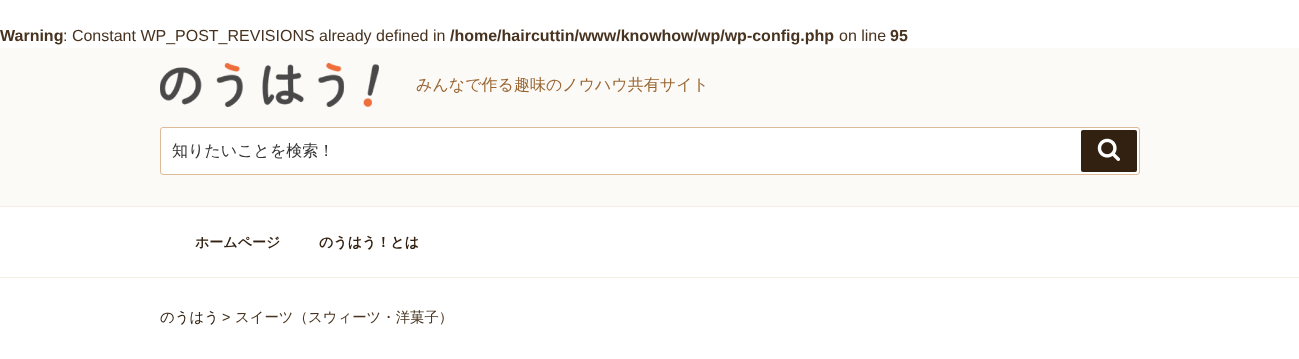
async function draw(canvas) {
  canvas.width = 1299
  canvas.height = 359
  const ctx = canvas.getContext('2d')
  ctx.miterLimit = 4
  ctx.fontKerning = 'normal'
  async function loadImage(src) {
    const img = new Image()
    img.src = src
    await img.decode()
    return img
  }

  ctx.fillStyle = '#fff'
  ctx.fillRect(0, 0, 1299, 359)
  ctx.font = 'bold 16px Liberation Sans'
  ctx.fillStyle = '#47331f'
  ctx.fillText('Warning', 0, 41)
  ctx.font = '16px Liberation Sans'
  ctx.fillText(': Constant WP_POST_REVISIONS already defined in', 63, 41)
  ctx.font = 'bold 16px Liberation Sans'
  ctx.fillText('/home/haircuttin/www/knowhow/wp/wp-config.php', 450, 41)
  ctx.font = '16px Liberation Sans'
  ctx.fillText('on line', 839, 41)
  ctx.font = 'bold 16px Liberation Sans'
  ctx.fillText('95', 890, 41)
  ctx.fillStyle = '#fcfaf7'
  ctx.fillRect(0, 48, 1299, 158)
  ctx.drawImage(await loadImage('image0.png'), 160, 63, 219, 44)
  ctx.font = '500 16px WenQuanYi Zen Hei'
  ctx.fillStyle = '#963'
  ctx.fillText('みんなで作る趣味のノウハウ共有サイト', 416, 90)
  ctx.fillStyle = '#fff'
  ctx.beginPath()
  ctx.roundRect(160.5, 127.5, 979, 47, 2.5)
  ctx.fill()
  ctx.strokeStyle = '#ddba98'
  ctx.stroke()
  ctx.fillStyle = '#333'
  ctx.fillText('知りたいことを検索！', 172, 156)
  ctx.fillStyle = '#322111'
  ctx.beginPath()
  ctx.roundRect(1081, 130, 56, 42, 2)
  ctx.fill()
  ctx.drawImage(await loadImage('image1.png'), 1097, 138, 23, 23)
  ctx.fillStyle = '#f6ede4'
  ctx.fillRect(0, 206, 1299, 1)
  ctx.fillRect(0, 277, 1299, 1)
  ctx.font = 'bold 14px WenQuanYi Zen Hei'
  ctx.fillStyle = '#322111'
  ctx.fillText('ホームページ', 195, 247)
  ctx.fillText('のうはう！とは', 319, 247)
  ctx.font = '500 14.4px WenQuanYi Zen Hei'
  ctx.fillText('のうはう', 160, 322)
  ctx.font = '14.4px Liberation Sans'
  ctx.fillStyle = '#47331f'
  ctx.fillText('>', 222, 322)
  ctx.font = '500 14.4px WenQuanYi Zen Hei'
  ctx.fillText('スイーツ（スウィーツ・洋菓子）', 235, 322)
}

draw(document.querySelector('canvas'))
